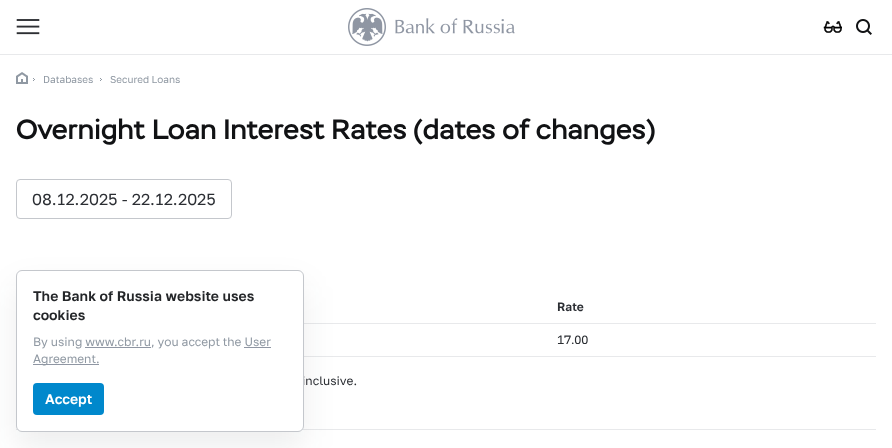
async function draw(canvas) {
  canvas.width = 892
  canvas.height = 448
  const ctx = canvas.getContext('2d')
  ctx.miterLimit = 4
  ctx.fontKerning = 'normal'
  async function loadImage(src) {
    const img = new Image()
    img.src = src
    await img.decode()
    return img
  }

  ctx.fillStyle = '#fff'
  ctx.fillRect(0, 0, 892, 448)
  ctx.fillStyle = '#e8e9eb'
  ctx.fillRect(0, 54, 892, 1)
  ctx.drawImage(await loadImage('image0.png'), 16, 19, 24, 16)
  ctx.drawImage(await loadImage('image1.png'), 348, 8, 167, 38)
  ctx.drawImage(await loadImage('image2.png'), 823, 21, 19, 12)
  ctx.drawImage(await loadImage('image3.png'), 856, 19, 16, 16)
  ctx.drawImage(await loadImage('image4.png'), 16, 72, 12, 12)
  ctx.drawImage(await loadImage('image5.png'), 33, 78, 2, 3)
  ctx.font = '10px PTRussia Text'
  ctx.fillStyle = '#9099a3'
  ctx.fillText('Databases', 43, 83)
  ctx.drawImage(await loadImage('image5.png'), 100, 78, 2, 3)
  ctx.fillText('Secured Loans', 110, 83)
  ctx.font = '500 28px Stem'
  ctx.fillStyle = '#111214'
  ctx.fillText('Overnight Loan Interest Rates (dates of changes)', 16, 139)
  ctx.beginPath()
  ctx.roundRect(16.5, 179.5, 215, 39, 3.5)
  ctx.strokeStyle = '#c4c7cc'
  ctx.stroke()
  ctx.font = '16px PTRussia Text'
  ctx.fillStyle = '#2b2e33'
  ctx.fillText('08.12.2025 - 22.12.2025', 32, 205)
  ctx.font = '500 12px PTRussia Text'
  ctx.fillText('Rate', 557, 311)
  ctx.fillStyle = '#e8e9eb'
  ctx.fillRect(304, 323, 572, 1)
  ctx.font = '500 12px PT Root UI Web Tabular'
  ctx.fillStyle = '#2b2e33'
  ctx.fillText('17.00', 557, 344)
  ctx.fillStyle = '#e8e9eb'
  ctx.fillRect(304, 356, 572, 1)
  ctx.font = '12px PTRussia Text'
  ctx.fillStyle = '#2b2e33'
  ctx.fillText('inclusive.', 302, 385)
  ctx.fillStyle = '#e8e9eb'
  ctx.fillRect(16, 429, 860, 1)
  ctx.fillStyle = '#1f222914'
  ctx.filter = 'blur(16px)'
  ctx.beginPath()
  ctx.roundRect(16, 286, 288, 162, 6)
  ctx.fill()
  ctx.filter = 'none'
  ctx.fillStyle = '#fff'
  ctx.beginPath()
  ctx.roundRect(16.5, 270.5, 287, 161, 5.5)
  ctx.fill()
  ctx.stroke()
  ctx.font = '500 14px PTRussia Text'
  ctx.fillStyle = '#242629'
  ctx.fillText('The Bank of Russia website uses', 33, 301)
  ctx.fillText('cookies', 33, 320)
  ctx.font = '12px PTRussia Text'
  ctx.fillStyle = '#9099a3'
  ctx.fillText('By using www.cbr.ru, you accept the User', 33, 346)
  ctx.fillStyle = '#8f96a3'
  ctx.fillRect(85, 347, 66, 1)
  ctx.fillRect(33, 364, 66, 1)
  ctx.fillStyle = '#9099a3'
  ctx.fillText('Agreement.', 33, 363)
  ctx.fillStyle = '#8f96a3'
  ctx.fillRect(244, 347, 27, 1)
  ctx.fillStyle = '#08c'
  ctx.beginPath()
  ctx.roundRect(33, 383, 71, 32, 4)
  ctx.fill()
  ctx.font = '500 14px PTRussia Text'
  ctx.fillStyle = '#fff'
  ctx.fillText('Accept', 45, 404)
}

draw(document.querySelector('canvas'))
